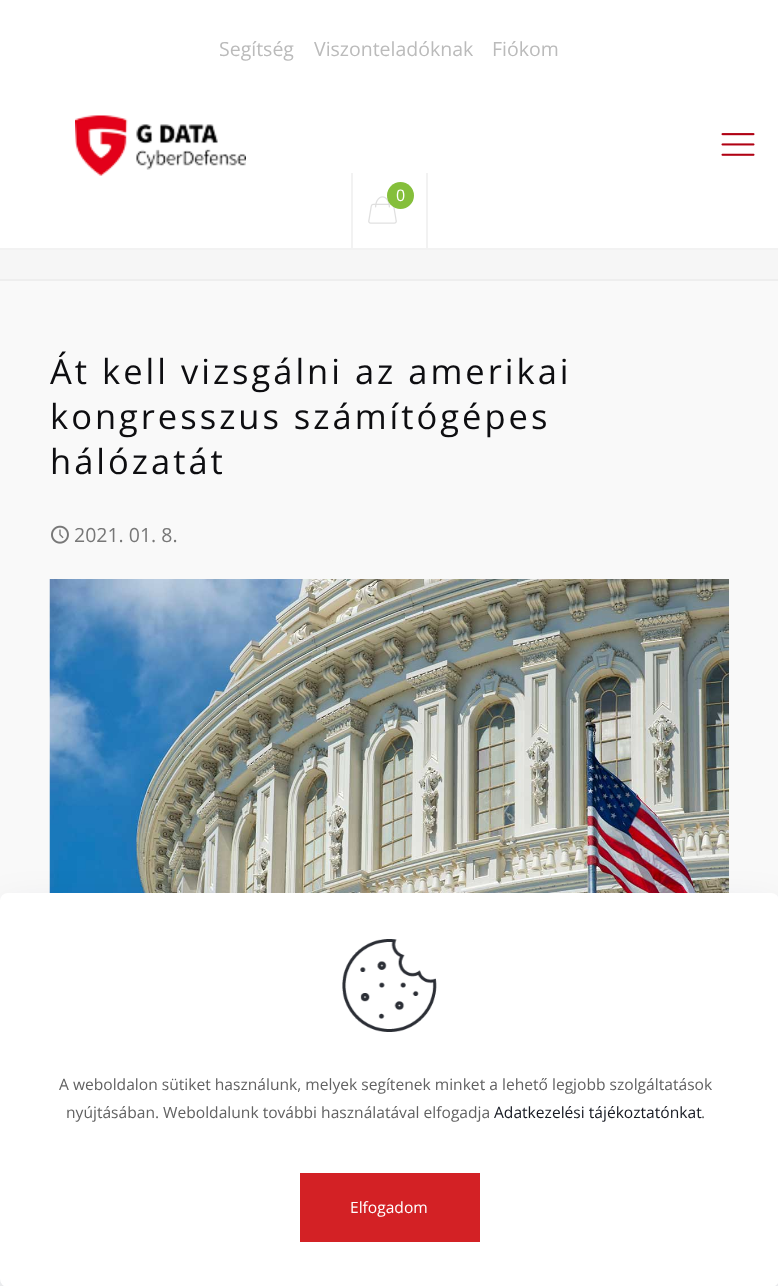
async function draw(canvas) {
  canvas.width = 778
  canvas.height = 1286
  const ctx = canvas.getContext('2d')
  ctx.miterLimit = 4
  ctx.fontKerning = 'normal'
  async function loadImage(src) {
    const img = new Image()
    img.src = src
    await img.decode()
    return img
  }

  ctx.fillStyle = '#f9f9f9'
  ctx.fillRect(0, 0, 778, 1286)
  ctx.fillStyle = '#f6f6f6'
  ctx.fillRect(0, 250, 778, 29)
  ctx.fillStyle = '#fff'
  ctx.fillRect(0, 0, 778, 248)
  ctx.font = '19.5px Open Sans'
  ctx.fillStyle = '#bbb'
  ctx.fillText('Segítség', 219, 56)
  ctx.fillText('Viszonteladóknak', 314, 56)
  ctx.fillText('Fiókom', 492, 56)
  ctx.fillStyle = '#f2f2f2'
  ctx.fillRect(0, 248, 778, 2)
  ctx.drawImage(await loadImage('image0.png'), 75, 115, 171, 61)
  ctx.drawImage(await loadImage('image1.png'), 721, 133, 34, 23)
  ctx.fillRect(426, 173, 2, 75)
  ctx.fillRect(351, 173, 2, 75)
  ctx.drawImage(await loadImage('image2.png'), 368, 196, 29, 28)
  ctx.fillStyle = '#85bf3b'
  ctx.beginPath()
  ctx.arc(400.5, 195.5, 13.5, 0, 2 * Math.PI)
  ctx.fill()
  ctx.font = '16px Open Sans'
  ctx.fillStyle = '#fff'
  ctx.fillText('0', 396, 201)
  ctx.fillStyle = '#eee'
  ctx.fillRect(0, 279, 778, 2)
  ctx.letterSpacing = '3px'
  ctx.font = '34.5px Open Sans'
  ctx.fillStyle = '#0e0e11'
  ctx.fillText('Át kell vizsgálni az amerikai', 50, 384)
  ctx.fillText('kongresszus számítógépes', 50, 429)
  ctx.fillText('hálózatát', 50, 474)
  ctx.drawImage(await loadImage('image3.png'), 51, 525, 18, 19)
  ctx.letterSpacing = '0px'
  ctx.font = '19.5px Open Sans'
  ctx.fillStyle = '#777'
  ctx.fillText('2021. 01. 8.', 74, 542)
  ctx.drawImage(await loadImage('image4.png'), 49, 579, 680, 314)
  ctx.fillStyle = '#01072721'
  ctx.filter = 'blur(22.5px)'
  ctx.beginPath()
  ctx.roundRect(0, 915, 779, 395, 8)
  ctx.fill()
  ctx.filter = 'none'
  ctx.fillStyle = '#fff'
  ctx.beginPath()
  ctx.roundRect(0, 893, 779, 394, 8)
  ctx.fill()
  ctx.drawImage(await loadImage('image5.png'), 342, 939, 95, 93)
  ctx.font = '15.6px Open Sans'
  ctx.fillStyle = '#626262'
  ctx.fillText('A weboldalon sütiket használunk, melyek segítenek minket a lehető legjobb szolgáltatások', 59, 1090)
  ctx.fillText('nyújtásában. Weboldalunk további használatával elfogadja', 66, 1118)
  ctx.fillStyle = '#161922'
  ctx.fillText('Adatkezelési tájékoztatónkat', 494, 1118)
  ctx.fillStyle = '#626262'
  ctx.fillText('.', 701, 1118)
  ctx.fillStyle = '#d32125'
  ctx.fillRect(300, 1173, 180, 69)
  ctx.fillStyle = '#fff'
  ctx.fillText('Elfogadom', 350, 1213)
}

draw(document.querySelector('canvas'))
